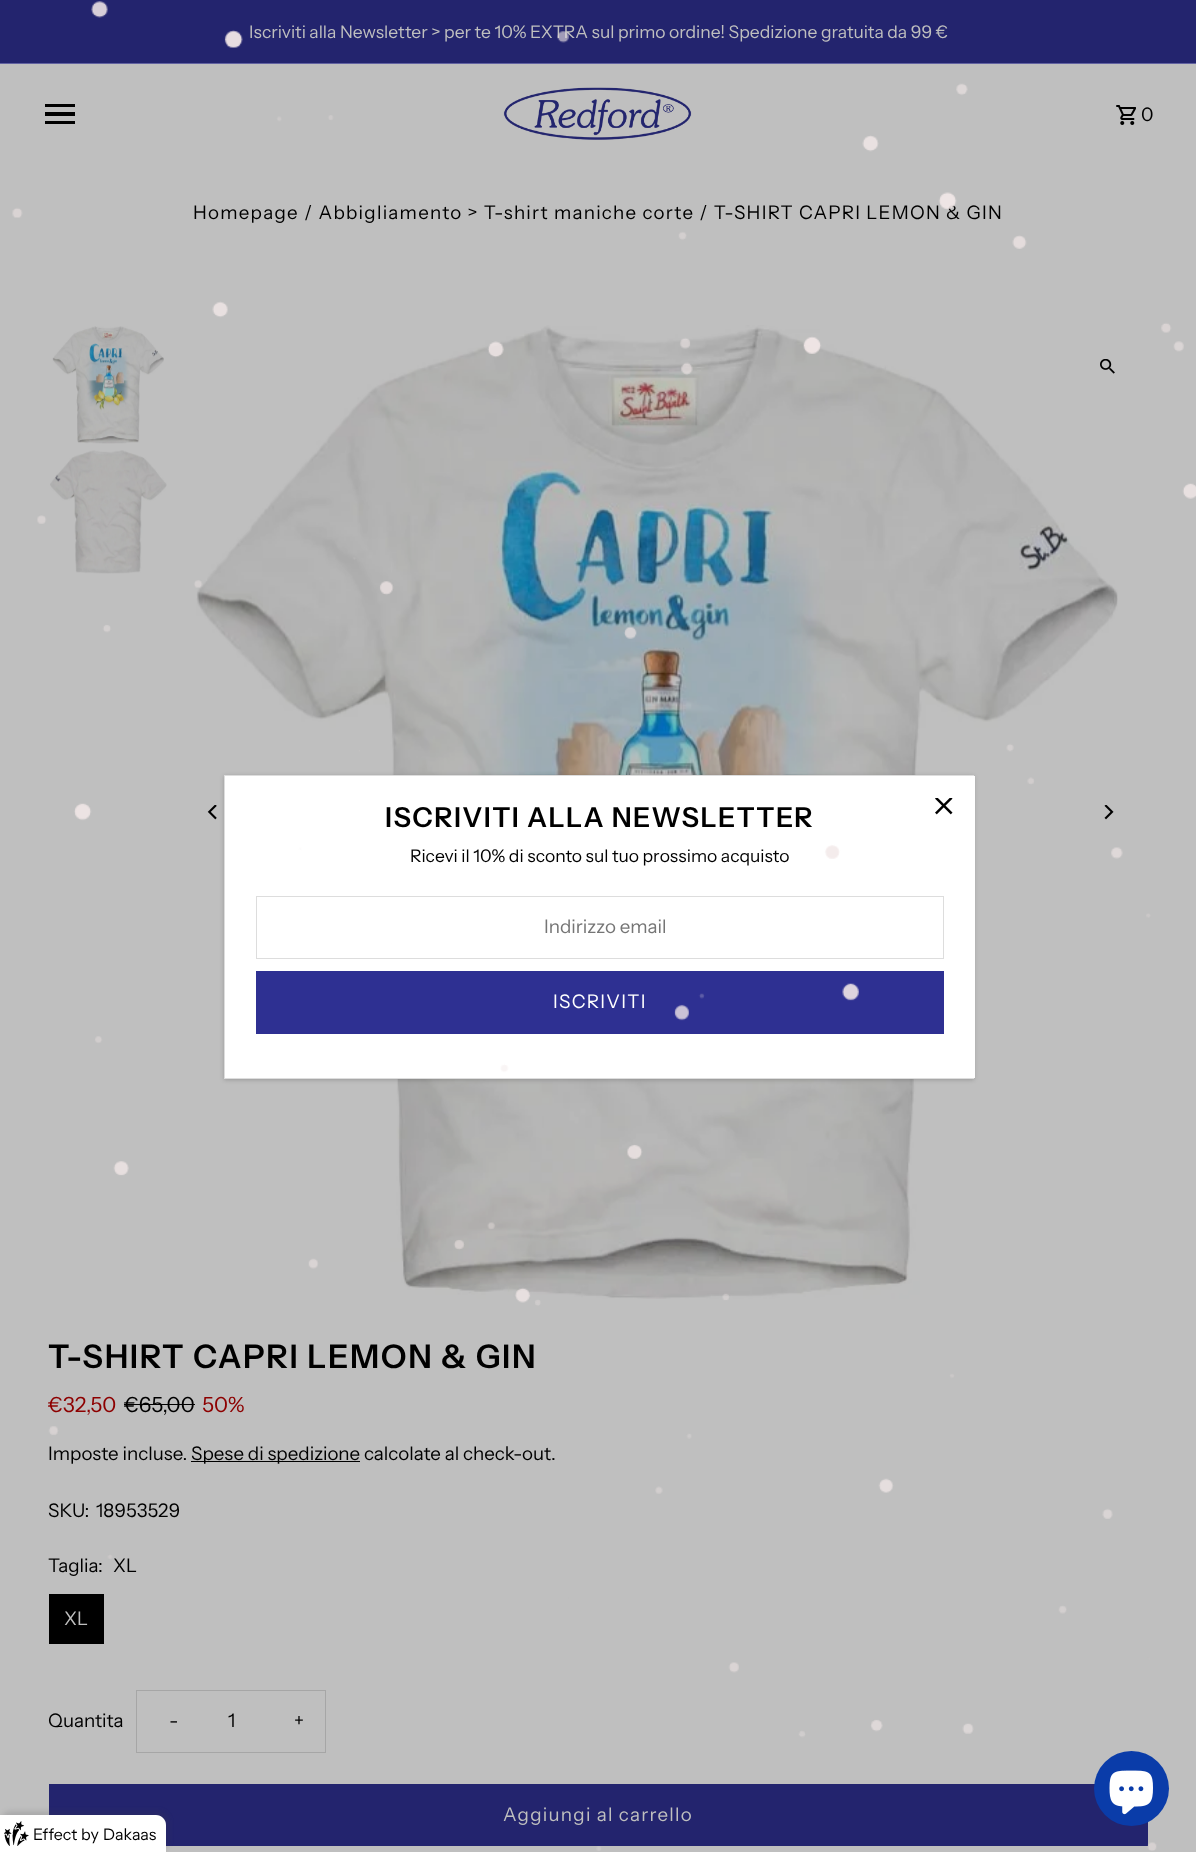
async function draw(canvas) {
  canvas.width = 1196
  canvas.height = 1852
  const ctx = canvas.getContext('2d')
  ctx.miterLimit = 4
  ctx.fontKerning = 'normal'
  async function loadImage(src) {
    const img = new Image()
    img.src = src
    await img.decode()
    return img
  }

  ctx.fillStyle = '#bfbfbf'
  ctx.fillRect(0, 0, 1196, 1852)
  ctx.fillStyle = '#6262a1'
  ctx.fillRect(0, 63, 1196, 1)
  ctx.fillStyle = '#23246e'
  ctx.fillRect(0, 0, 1196, 63)
  ctx.font = '17.5px Instrument Sans'
  ctx.fillStyle = '#bfbfbf'
  ctx.fillText('Iscriviti alla Newsletter > per te 10% EXTRA sul primo ordine! Spedizione gratuita da 99 €', 249, 38)
  ctx.fillStyle = '#000'
  ctx.fillRect(45, 121, 30, 3)
  ctx.fillRect(45, 112, 30, 4)
  ctx.fillRect(45, 104, 30, 3)
  ctx.drawImage(await loadImage('image1.png'), 503, 87, 189, 53)
  ctx.drawImage(await loadImage('image2.png'), 1116, 105, 20, 20)
  ctx.letterSpacing = '1.25px'
  ctx.font = '18.75px Instrument Sans'
  ctx.fillText('0', 1141, 121)
  ctx.fillText('Homepage / Abbigliamento > T-shirt maniche corte / T-SHIRT CAPRI LEMON & GIN', 193, 219)
  ctx.drawImage(await loadImage('image3.png'), 52, 326, 112, 118)
  ctx.drawImage(await loadImage('image4.png'), 50, 450, 117, 124)
  ctx.drawImage(await loadImage('image5.png'), 196, 325, 922, 974)
  ctx.drawImage(await loadImage('image6.png'), 1100, 359, 15, 15)
  ctx.drawImage(await loadImage('image7.png'), 207, 805, 10, 15)
  ctx.drawImage(await loadImage('image8.png'), 1104, 805, 10, 15)
  ctx.letterSpacing = '1.6px'
  ctx.font = '600 32.5px Instrument Sans'
  ctx.fillText('T-SHIRT CAPRI LEMON & GIN', 48, 1368)
  ctx.letterSpacing = '0px'
  ctx.font = '21px Instrument Sans'
  ctx.fillStyle = '#8d0000'
  ctx.fillText('€32,50', 48, 1412)
  ctx.fillStyle = '#000'
  ctx.fillText('€65,00', 124, 1412)
  ctx.fillRect(124, 1404, 71, 1)
  ctx.fillStyle = '#8d0000'
  ctx.fillText('50%', 202, 1412)
  ctx.font = '18.75px Instrument Sans'
  ctx.fillStyle = '#000'
  ctx.fillText('Imposte incluse.', 48, 1460)
  ctx.fillRect(191, 1461, 169, 1)
  ctx.fillText('Spese di spedizione calcolate al check-out.', 191, 1460)
  ctx.fillText('SKU:', 48, 1517)
  ctx.fillText('18953529', 96, 1517)
  ctx.fillText('Taglia:', 48, 1572)
  ctx.fillText('XL', 113, 1572)
  ctx.fillRect(49, 1594, 55, 50)
  ctx.fillStyle = '#bfbfbf'
  ctx.fillText('XL', 64, 1625)
  ctx.fillStyle = '#000'
  ctx.fillText('Quantita', 48, 1727)
  ctx.strokeStyle = '#a6a6a6'
  ctx.strokeRect(136.5, 1690.5, 189, 62)
  ctx.letterSpacing = '1.25px'
  ctx.fillText('-', 169, 1727)
  ctx.letterSpacing = '0px'
  ctx.fillText('1', 228, 1727)
  ctx.letterSpacing = '1.25px'
  ctx.fillText('+', 294, 1727)
  ctx.fillStyle = '#23246e'
  ctx.fillRect(49, 1784, 1099, 62)
  ctx.fillStyle = '#bfbfbf'
  ctx.fillText('Aggiungi al carrello', 503, 1821)
  ctx.fillStyle = '#00000033'
  ctx.filter = 'blur(2px)'
  ctx.beginPath()
  ctx.rect(224, 776, 750, 304)
  ctx.fill()
  ctx.filter = 'none'
  ctx.strokeStyle = '#ddd'
  ctx.strokeRect(224.5, 775.5, 749, 303)
  ctx.fillStyle = '#fff'
  ctx.fillRect(225, 776, 750, 302)
  ctx.letterSpacing = '1.4px'
  ctx.font = '600 27.5px Instrument Sans'
  ctx.fillStyle = '#000'
  ctx.fillText('ISCRIVITI ALLA NEWSLETTER', 385, 827)
  ctx.letterSpacing = '0px'
  ctx.font = '17.5px Instrument Sans'
  ctx.fillText('Ricevi il 10% di sconto sul tuo prossimo acquisto', 410, 862)
  ctx.strokeRect(256.5, 896.5, 687, 62)
  ctx.font = '18.75px Instrument Sans'
  ctx.fillStyle = '#757575'
  ctx.fillText('Indirizzo email', 544, 933)
  ctx.fillStyle = '#2e3092'
  ctx.fillRect(256, 971, 688, 63)
  ctx.letterSpacing = '1.25px'
  ctx.fillStyle = '#fff'
  ctx.fillText('ISCRIVITI', 553, 1008)
  ctx.drawImage(await loadImage('image9.png'), 935, 798, 18, 17)
  ctx.drawImage(await loadImage('image0.png'), 12, 1, 1184, 1850)
  ctx.fillStyle = '#0a3ca9'
  ctx.beginPath()
  ctx.arc(1131.5, 1788.5, 37.5, 0, 2 * Math.PI)
  ctx.fill()
  ctx.drawImage(await loadImage('image10.png'), 1109, 1770, 44, 45)
  ctx.fillStyle = '#403c4329'
  ctx.filter = 'blur(2.5px)'
  ctx.beginPath()
  ctx.roundRect(0, 1811, 169, 40, 11)
  ctx.fill()
  ctx.filter = 'none'
  ctx.fillStyle = '#fff'
  ctx.beginPath()
  ctx.moveTo(0, 1815)
  ctx.lineTo(156, 1815)
  ctx.bezierCurveTo(161.5, 1815, 166, 1819.5, 166, 1825)
  ctx.lineTo(166, 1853)
  ctx.lineTo(0, 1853)
  ctx.closePath()
  ctx.fill()
  ctx.drawImage(await loadImage('image11.png'), 4, 1821, 25, 25)
  ctx.letterSpacing = '0px'
  ctx.font = '16px Instrument Sans'
  ctx.fillStyle = '#000'
  ctx.fillText('Effect', 33, 1840)
  ctx.fillText('by', 81, 1840)
  ctx.fillText('Dakaas', 103, 1840)
}

draw(document.querySelector('canvas'))
